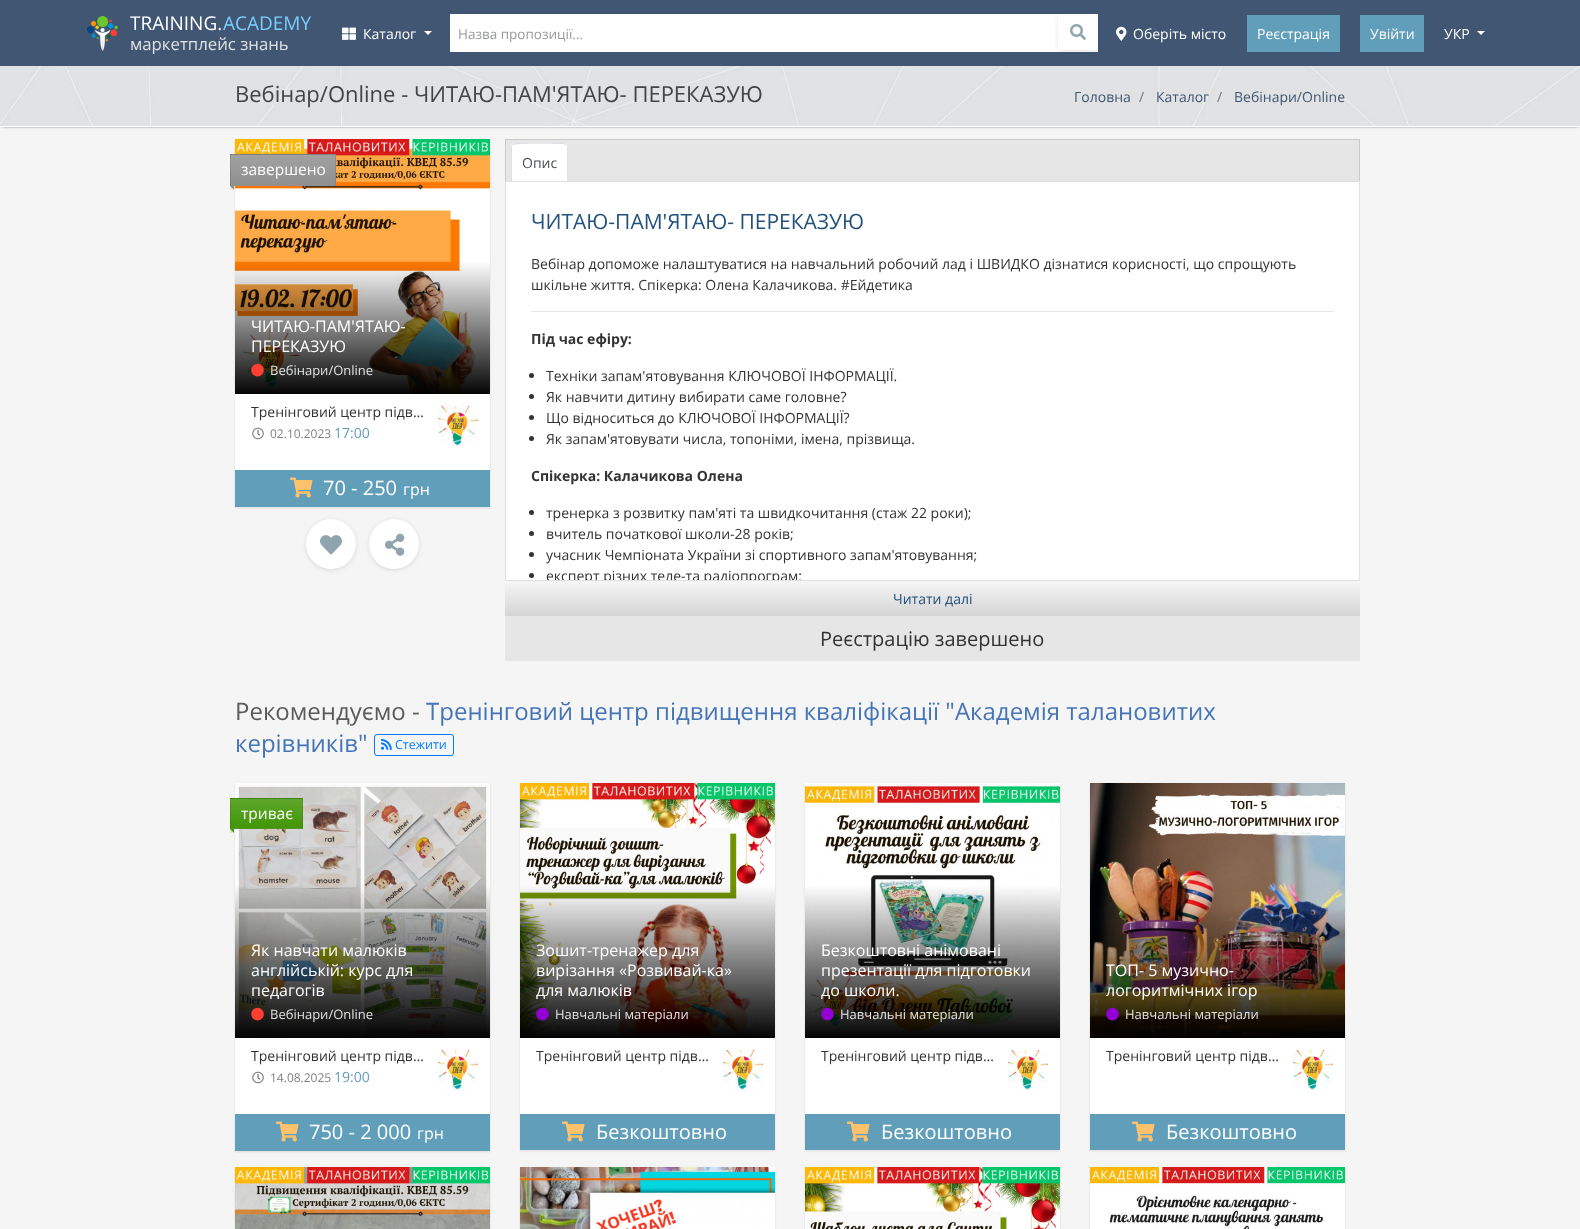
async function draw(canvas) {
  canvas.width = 1580
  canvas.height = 1229
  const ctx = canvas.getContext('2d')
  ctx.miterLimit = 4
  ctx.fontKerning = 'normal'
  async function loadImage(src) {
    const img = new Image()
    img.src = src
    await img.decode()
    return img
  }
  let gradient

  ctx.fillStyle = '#f5f5f5'
  ctx.fillRect(0, 0, 1580, 1229)
  ctx.fillStyle = '#415673'
  ctx.fillRect(0, 0, 1580, 66)
  ctx.drawImage(await loadImage('image0.png'), 86, 16, 32, 35)
  ctx.font = '19px Open Sans'
  ctx.fillStyle = '#fff'
  ctx.fillText('TRAINING.', 130, 30)
  ctx.fillStyle = '#77cffe'
  ctx.fillText('ACADEMY', 223, 30)
  ctx.font = '16.75px Open Sans'
  ctx.fillStyle = '#e1e1e1'
  ctx.fillText('маркетплейс знань', 130, 50)
  ctx.drawImage(await loadImage('image1.png'), 342, 27, 14, 13)
  ctx.font = '14px Open Sans'
  ctx.fillStyle = '#fff'
  ctx.fillText('Каталог', 363, 39)
  ctx.beginPath()
  ctx.moveTo(424, 31)
  ctx.lineTo(432, 31)
  ctx.lineTo(428, 35)
  ctx.closePath()
  ctx.fill()
  ctx.fillRect(450, 14, 648, 38)
  ctx.font = '13.5px Open Sans'
  ctx.fillStyle = '#999a9b'
  ctx.fillText('Назва пропозиції...', 458, 39)
  ctx.fillStyle = '#33333326'
  ctx.filter = 'blur(2px)'
  ctx.beginPath()
  ctx.roundRect(1058, 15, 40, 36, 4)
  ctx.fill()
  ctx.filter = 'none'
  ctx.fillStyle = '#fff'
  ctx.beginPath()
  ctx.roundRect(1058, 14, 40, 36, [0, 4, 4, 0])
  ctx.fill()
  ctx.drawImage(await loadImage('image2.png'), 1070, 24, 16, 16)
  ctx.drawImage(await loadImage('image3.png'), 1116, 26, 11, 15)
  ctx.font = '14px Open Sans'
  ctx.fillText('Оберіть місто', 1133, 39)
  ctx.fillStyle = '#609eb9'
  ctx.fillRect(1247, 15, 93, 37)
  ctx.fillStyle = '#fff'
  ctx.fillText('Реєстрація', 1257, 39)
  ctx.fillStyle = '#609eb9'
  ctx.fillRect(1360, 15, 64, 37)
  ctx.fillStyle = '#fff'
  ctx.fillText('Увійти', 1370, 39)
  ctx.fillText('УКР', 1444, 39)
  ctx.beginPath()
  ctx.moveTo(1477, 31)
  ctx.lineTo(1485, 31)
  ctx.lineTo(1481, 35)
  ctx.closePath()
  ctx.fill()
  ctx.fillStyle = '#727272cc'
  ctx.filter = 'blur(1px)'
  ctx.beginPath()
  ctx.rect(2, 70, 1576, 57)
  ctx.fill()
  ctx.filter = 'none'
  ctx.drawImage(await loadImage('image4.png'), 0, 66, 1580, 60)
  ctx.fillStyle = '#fff'
  ctx.fillRect(0, 126, 1580, 1)
  ctx.font = '22px Open Sans'
  ctx.fillStyle = '#444'
  ctx.fillText('Вебінар/Online - ЧИТАЮ-ПАМ\'ЯТАЮ- ПЕРЕКАЗУЮ', 235, 102)
  ctx.font = '14px Open Sans'
  ctx.fillStyle = '#415673'
  ctx.fillText('Головна', 1074, 102)
  ctx.fillStyle = '#6c757d'
  ctx.fillText('/', 1139, 102)
  ctx.fillStyle = '#415673'
  ctx.fillText('Каталог', 1156, 102)
  ctx.fillStyle = '#6c757d'
  ctx.fillText('/', 1217, 102)
  ctx.fillStyle = '#415673'
  ctx.fillText('Вебінари/Online', 1234, 102)
  ctx.fillStyle = '#0505061a'
  ctx.filter = 'blur(1px)'
  ctx.beginPath()
  ctx.rect(235, 140, 255, 368)
  ctx.fill()
  ctx.filter = 'none'
  ctx.drawImage(await loadImage('image5.png'), 235, 139, 255, 255)
  ctx.fillStyle = '#909090'
  ctx.fillRect(230, 154, 106, 1)
  gradient = ctx.createLinearGradient(283, 155, 283, 185)
  gradient.addColorStop(0, '#a1a1a1')
  gradient.addColorStop(1, '#909090')
  ctx.fillStyle = gradient
  ctx.fillRect(230, 155, 106, 30)
  gradient = ctx.createLinearGradient(283, 185, 283, 215)
  gradient.addColorStop(0, '#a1a1a1')
  gradient.addColorStop(1, '#909090')
  ctx.fillStyle = gradient
  ctx.fillRect(230, 185, 106, 1)
  ctx.strokeStyle = '#0000001a'
  ctx.strokeRect(230.5, 154.5, 105, 31)
  ctx.font = '15.5px Open Sans'
  ctx.fillStyle = '#fff'
  ctx.fillText('завершено', 241, 175)
  ctx.fillStyle = '#909090'
  ctx.beginPath()
  ctx.moveTo(230, 186)
  ctx.lineTo(234, 186)
  ctx.lineTo(232, 188)
  ctx.closePath()
  ctx.fill()
  ctx.beginPath()
  ctx.moveTo(234, 186)
  ctx.lineTo(234, 190)
  ctx.lineTo(232, 188)
  ctx.closePath()
  ctx.fill()
  ctx.fillStyle = '#fff'
  ctx.beginPath()
  ctx.moveTo(234, 190)
  ctx.lineTo(230, 190)
  ctx.lineTo(232, 188)
  ctx.closePath()
  ctx.fill()
  ctx.beginPath()
  ctx.moveTo(230, 190)
  ctx.lineTo(230, 186)
  ctx.lineTo(232, 188)
  ctx.closePath()
  ctx.fill()
  ctx.fillStyle = '#909090cc'
  ctx.fillRect(230, 186, 4, 4)
  ctx.beginPath()
  ctx.moveTo(230, 186)
  ctx.lineTo(234, 186)
  ctx.lineTo(232, 188)
  ctx.closePath()
  ctx.fill()
  ctx.beginPath()
  ctx.moveTo(234, 186)
  ctx.lineTo(234, 190)
  ctx.lineTo(232, 188)
  ctx.closePath()
  ctx.fill()
  ctx.fillStyle = '#ffffffcc'
  ctx.beginPath()
  ctx.moveTo(234, 190)
  ctx.lineTo(230, 190)
  ctx.lineTo(232, 188)
  ctx.closePath()
  ctx.fill()
  ctx.beginPath()
  ctx.moveTo(230, 190)
  ctx.lineTo(230, 186)
  ctx.lineTo(232, 188)
  ctx.closePath()
  ctx.fill()
  ctx.font = '16px Open Sans'
  ctx.fillStyle = '#fff'
  ctx.fillText('ЧИТАЮ-ПАМ\'ЯТАЮ-', 251, 332)
  ctx.fillText('ПЕРЕКАЗУЮ', 251, 352)
  ctx.drawImage(await loadImage('image6.png'), 251, 363, 13, 14)
  ctx.font = '13px Open Sans'
  ctx.fillStyle = '#e1e1e1'
  ctx.fillText('Вебінари/Online', 270, 375)
  ctx.fillStyle = '#fff'
  ctx.fillRect(235, 394, 255, 76)
  ctx.font = '14px Open Sans'
  ctx.fillStyle = '#333'
  ctx.fillText('Тренінговий центр підв…', 251, 417)
  ctx.drawImage(await loadImage('image7.png'), 252, 427, 12, 13)
  ctx.font = '12px Open Sans'
  ctx.fillStyle = '#817e7e'
  ctx.fillText('02.10.2023', 270, 438)
  ctx.font = '14px Open Sans'
  ctx.fillStyle = '#609eb9'
  ctx.fillText('17:00', 334, 438)
  ctx.drawImage(await loadImage('image8.png'), 438, 406, 40, 40)
  ctx.fillRect(235, 470, 255, 37)
  ctx.drawImage(await loadImage('image9.png'), 290, 477, 23, 21)
  ctx.font = '20px Open Sans'
  ctx.fillStyle = '#fff'
  ctx.fillText('70 - 250', 323, 495)
  ctx.font = '16px Open Sans'
  ctx.fillText('грн', 403, 495)
  ctx.fillStyle = '#33333326'
  ctx.filter = 'blur(2px)'
  ctx.beginPath()
  ctx.roundRect(306, 520, 50, 50, 25)
  ctx.fill()
  ctx.filter = 'none'
  ctx.fillStyle = '#fff'
  ctx.beginPath()
  ctx.arc(331, 544, 25, 0, 2 * Math.PI)
  ctx.fill()
  ctx.drawImage(await loadImage('image10.png'), 320, 535, 22, 20)
  ctx.fillStyle = '#33333326'
  ctx.filter = 'blur(2px)'
  ctx.beginPath()
  ctx.roundRect(369, 520, 50, 50, 25)
  ctx.fill()
  ctx.filter = 'none'
  ctx.fillStyle = '#fff'
  ctx.beginPath()
  ctx.arc(394, 544, 25, 0, 2 * Math.PI)
  ctx.fill()
  ctx.drawImage(await loadImage('image11.png'), 385, 533, 20, 23)
  ctx.fillStyle = '#e6e6e6'
  ctx.fillRect(505, 139, 855, 42)
  ctx.fillStyle = '#c9c9c9'
  ctx.beginPath()
  ctx.moveTo(505, 139)
  ctx.lineTo(1360, 139)
  ctx.lineTo(1359, 140)
  ctx.lineTo(506, 140)
  ctx.closePath()
  ctx.fill()
  ctx.fillStyle = '#0000001f'
  ctx.beginPath()
  ctx.moveTo(1360, 139)
  ctx.lineTo(1360, 181)
  ctx.lineTo(1359, 181)
  ctx.lineTo(1359, 140)
  ctx.closePath()
  ctx.fill()
  ctx.beginPath()
  ctx.moveTo(505, 181)
  ctx.lineTo(505, 139)
  ctx.lineTo(506, 140)
  ctx.lineTo(506, 181)
  ctx.closePath()
  ctx.fill()
  ctx.fillStyle = '#fff'
  ctx.beginPath()
  ctx.roundRect(511, 143, 57, 39, [4, 4, 0, 0])
  ctx.fill()
  ctx.fillStyle = '#dee2e6'
  ctx.beginPath()
  ctx.moveTo(515, 143)
  ctx.lineTo(512, 144)
  ctx.lineTo(513, 145)
  ctx.bezierCurveTo(515, 143, 558, 144, 564, 144)
  ctx.lineTo(566, 145)
  ctx.lineTo(567, 144)
  ctx.lineTo(564, 143)
  ctx.closePath()
  ctx.fill()
  ctx.beginPath()
  ctx.moveTo(568, 182)
  ctx.lineTo(568, 147)
  ctx.bezierCurveTo(568, 146, 567.5, 145, 567, 144)
  ctx.lineTo(566, 145)
  ctx.bezierCurveTo(567, 145, 567, 146, 567, 147)
  ctx.lineTo(567, 181)
  ctx.closePath()
  ctx.moveTo(511, 182)
  ctx.lineTo(512, 181)
  ctx.lineTo(512, 147)
  ctx.bezierCurveTo(512, 146, 512, 145, 513, 145)
  ctx.lineTo(512, 144)
  ctx.bezierCurveTo(511.5, 145, 511, 146, 511, 147)
  ctx.closePath()
  ctx.fill()
  ctx.font = '14px Open Sans'
  ctx.fillStyle = '#495057'
  ctx.fillText('Опис', 522, 168)
  ctx.fillStyle = '#fff'
  ctx.beginPath()
  ctx.rect(505.5, 181.5, 854, 399)
  ctx.fill()
  ctx.strokeStyle = '#dfdfdf'
  ctx.stroke()
  ctx.font = '21px Open Sans'
  ctx.fillStyle = '#23527c'
  ctx.fillText('ЧИТАЮ-ПАМ\'ЯТАЮ- ПЕРЕКАЗУЮ', 531, 229)
  ctx.font = '14px Open Sans'
  ctx.fillStyle = '#333'
  ctx.fillText('Вебінар допоможе налаштуватися на навчальний робочий лад і ШВИДКО дізнатися корисності, що спрощують', 531, 269)
  ctx.fillText('шкільне життя. Спікерка: Олена Калачикова. #Ейдетика', 531, 290)
  ctx.fillStyle = '#e6e6e6'
  ctx.fillRect(531, 311, 803, 1)
  ctx.font = 'bold 14px Open Sans'
  ctx.fillStyle = '#333'
  ctx.fillText('Під час ефіру:', 531, 344)
  ctx.beginPath()
  ctx.arc(531.5, 375.5, 2.5, 0, 2 * Math.PI)
  ctx.fill()
  ctx.font = '14px Open Sans'
  ctx.fillText('Техніки запам\'ятовування КЛЮЧОВОЇ ІНФОРМАЦІЇ.', 546, 381)
  ctx.beginPath()
  ctx.arc(531.5, 396.5, 2.5, 0, 2 * Math.PI)
  ctx.fill()
  ctx.fillText('Як навчити дитину вибирати саме головне?', 546, 402)
  ctx.beginPath()
  ctx.arc(531.5, 417.5, 2.5, 0, 2 * Math.PI)
  ctx.fill()
  ctx.fillText('Що відноситься до КЛЮЧОВОЇ ІНФОРМАЦІЇ?', 546, 423)
  ctx.beginPath()
  ctx.arc(531.5, 438.5, 2.5, 0, 2 * Math.PI)
  ctx.fill()
  ctx.fillText('Як запам\'ятовувати числа, топоніми, імена, прізвища.', 546, 444)
  ctx.font = 'bold 14px Open Sans'
  ctx.fillText('Спікерка: Калачикова Олена', 531, 481)
  ctx.beginPath()
  ctx.arc(531.5, 512.5, 2.5, 0, 2 * Math.PI)
  ctx.fill()
  ctx.font = '14px Open Sans'
  ctx.fillText('тренерка з розвитку пам\'яті та швидкочитання (стаж 22 роки);', 546, 518)
  ctx.beginPath()
  ctx.arc(531.5, 533.5, 2.5, 0, 2 * Math.PI)
  ctx.fill()
  ctx.fillText('вчитель початкової школи-28 років;', 546, 539)
  ctx.beginPath()
  ctx.arc(531.5, 554.5, 2.5, 0, 2 * Math.PI)
  ctx.fill()
  ctx.fillText('учасник Чемпіоната України зі спортивного запам\'ятовування;', 546, 560)
  ctx.beginPath()
  ctx.arc(531.5, 575.5, 2.5, 0, 2 * Math.PI)
  ctx.fill()
  ctx.save()
  ctx.beginPath()
  ctx.rect(506, 182, 853, 398)
  ctx.clip()
  ctx.fillText('експерт різних теле-та радіопрограм;', 546, 581)
  ctx.restore()
  gradient = ctx.createLinearGradient(933, 581, 933, 616)
  gradient.addColorStop(0, '#f5f5f5')
  gradient.addColorStop(1, '#d5d5d5')
  ctx.fillStyle = gradient
  ctx.fillRect(505, 584, 855, 32)
  ctx.fillStyle = '#23527c'
  ctx.fillText('Читати далі', 893, 604)
  ctx.fillStyle = '#e6e6e6'
  ctx.fillRect(505, 616, 855, 45)
  ctx.font = '20px Open Sans'
  ctx.fillStyle = '#333'
  ctx.fillText('Реєстрацію завершено', 820, 646)
  ctx.font = '24px Open Sans'
  ctx.fillStyle = '#5c5a5a'
  ctx.fillText('Рекомендуємо -', 235, 720)
  ctx.fillStyle = '#4575b7'
  ctx.fillText('Тренінговий центр підвищення кваліфікації "Академія талановитих', 426, 720)
  ctx.fillText('керівників"', 235, 752)
  ctx.beginPath()
  ctx.roundRect(374.5, 734.5, 79, 21, 2.5)
  ctx.strokeStyle = '#007bff'
  ctx.stroke()
  ctx.drawImage(await loadImage('image12.png'), 381, 738, 11, 12)
  ctx.font = '12.5px Open Sans'
  ctx.fillStyle = '#007bff'
  ctx.fillText('Стежити', 395, 749)
  ctx.fillStyle = '#0505061a'
  ctx.filter = 'blur(1px)'
  ctx.beginPath()
  ctx.rect(235, 784, 255, 368)
  ctx.fill()
  ctx.filter = 'none'
  ctx.drawImage(await loadImage('image13.png'), 235, 783, 255, 255)
  ctx.fillStyle = '#429607'
  ctx.fillRect(230, 798, 73, 1)
  gradient = ctx.createLinearGradient(267, 799, 267, 828)
  gradient.addColorStop(0, '#5ea62c')
  gradient.addColorStop(1, '#429607')
  ctx.fillStyle = gradient
  ctx.fillRect(230, 799, 73, 29)
  gradient = ctx.createLinearGradient(267, 828, 267, 857)
  gradient.addColorStop(0, '#5ea62c')
  gradient.addColorStop(1, '#429607')
  ctx.fillStyle = gradient
  ctx.fillRect(230, 828, 73, 1)
  ctx.strokeStyle = '#0000001a'
  ctx.strokeRect(230.5, 798.5, 72, 30)
  ctx.font = '15.5px Open Sans'
  ctx.fillStyle = '#fff'
  ctx.fillText('триває', 241, 819)
  ctx.fillStyle = '#429607'
  ctx.beginPath()
  ctx.moveTo(230, 829)
  ctx.lineTo(234, 829)
  ctx.lineTo(232, 831)
  ctx.closePath()
  ctx.fill()
  ctx.beginPath()
  ctx.moveTo(234, 829)
  ctx.lineTo(234, 833)
  ctx.lineTo(232, 831)
  ctx.closePath()
  ctx.fill()
  ctx.fillStyle = '#fff'
  ctx.beginPath()
  ctx.moveTo(234, 833)
  ctx.lineTo(230, 833)
  ctx.lineTo(232, 831)
  ctx.closePath()
  ctx.fill()
  ctx.beginPath()
  ctx.moveTo(230, 833)
  ctx.lineTo(230, 829)
  ctx.lineTo(232, 831)
  ctx.closePath()
  ctx.fill()
  ctx.fillStyle = '#429607cc'
  ctx.fillRect(230, 829, 4, 4)
  ctx.beginPath()
  ctx.moveTo(230, 829)
  ctx.lineTo(234, 829)
  ctx.lineTo(232, 831)
  ctx.closePath()
  ctx.fill()
  ctx.beginPath()
  ctx.moveTo(234, 829)
  ctx.lineTo(234, 833)
  ctx.lineTo(232, 831)
  ctx.closePath()
  ctx.fill()
  ctx.fillStyle = '#ffffffcc'
  ctx.beginPath()
  ctx.moveTo(234, 833)
  ctx.lineTo(230, 833)
  ctx.lineTo(232, 831)
  ctx.closePath()
  ctx.fill()
  ctx.beginPath()
  ctx.moveTo(230, 833)
  ctx.lineTo(230, 829)
  ctx.lineTo(232, 831)
  ctx.closePath()
  ctx.fill()
  ctx.font = '16px Open Sans'
  ctx.fillStyle = '#fff'
  ctx.fillText('Як навчати малюків', 251, 956)
  ctx.fillText('англійській: курс для', 251, 976)
  ctx.fillText('педагогів', 251, 996)
  ctx.drawImage(await loadImage('image14.png'), 251, 1007, 13, 14)
  ctx.font = '13px Open Sans'
  ctx.fillStyle = '#e1e1e1'
  ctx.fillText('Вебінари/Online', 270, 1019)
  ctx.fillStyle = '#fff'
  ctx.fillRect(235, 1038, 255, 76)
  ctx.font = '14px Open Sans'
  ctx.fillStyle = '#333'
  ctx.fillText('Тренінговий центр підв…', 251, 1061)
  ctx.drawImage(await loadImage('image7.png'), 252, 1071, 12, 13)
  ctx.font = '12px Open Sans'
  ctx.fillStyle = '#817e7e'
  ctx.fillText('14.08.2025', 270, 1082)
  ctx.font = '14px Open Sans'
  ctx.fillStyle = '#609eb9'
  ctx.fillText('19:00', 334, 1082)
  ctx.drawImage(await loadImage('image8.png'), 438, 1050, 40, 40)
  ctx.fillRect(235, 1114, 255, 37)
  ctx.drawImage(await loadImage('image9.png'), 276, 1121, 23, 21)
  ctx.font = '20px Open Sans'
  ctx.fillStyle = '#fff'
  ctx.fillText('750 - 2 000', 309, 1139)
  ctx.font = '16px Open Sans'
  ctx.fillText('грн', 417, 1139)
  ctx.fillStyle = '#0505061a'
  ctx.filter = 'blur(1px)'
  ctx.beginPath()
  ctx.rect(520, 784, 255, 367)
  ctx.fill()
  ctx.filter = 'none'
  ctx.drawImage(await loadImage('image15.png'), 520, 783, 255, 255)
  ctx.fillStyle = '#fff'
  ctx.fillText('Зошит-тренажер для', 536, 956)
  ctx.fillText('вирізання «Розвивай-ка»', 536, 976)
  ctx.fillText('для малюків', 536, 996)
  ctx.drawImage(await loadImage('image16.png'), 536, 1007, 13, 14)
  ctx.font = '13px Open Sans'
  ctx.fillStyle = '#e1e1e1'
  ctx.fillText('Навчальні матеріали', 555, 1019)
  ctx.fillStyle = '#fff'
  ctx.fillRect(520, 1038, 255, 76)
  ctx.font = '14px Open Sans'
  ctx.fillStyle = '#333'
  ctx.fillText('Тренінговий центр підв…', 536, 1061)
  ctx.drawImage(await loadImage('image8.png'), 723, 1050, 40, 40)
  ctx.fillStyle = '#609eb9'
  ctx.fillRect(520, 1114, 255, 36)
  ctx.drawImage(await loadImage('image9.png'), 562, 1121, 23, 21)
  ctx.font = '20px Open Sans'
  ctx.fillStyle = '#fff'
  ctx.fillText('Безкоштовно', 596, 1139)
  ctx.fillStyle = '#0505061a'
  ctx.filter = 'blur(1px)'
  ctx.beginPath()
  ctx.rect(805, 784, 255, 367)
  ctx.fill()
  ctx.filter = 'none'
  ctx.drawImage(await loadImage('image17.png'), 805, 783, 255, 255)
  ctx.font = '16px Open Sans'
  ctx.fillStyle = '#fff'
  ctx.fillText('Безкоштовні анімовані', 821, 956)
  ctx.fillText('презентації для підготовки', 821, 976)
  ctx.fillText('до школи.', 821, 996)
  ctx.drawImage(await loadImage('image18.png'), 821, 1007, 13, 14)
  ctx.font = '13px Open Sans'
  ctx.fillStyle = '#e1e1e1'
  ctx.fillText('Навчальні матеріали', 840, 1019)
  ctx.fillStyle = '#fff'
  ctx.fillRect(805, 1038, 255, 76)
  ctx.font = '14px Open Sans'
  ctx.fillStyle = '#333'
  ctx.fillText('Тренінговий центр підв…', 821, 1061)
  ctx.drawImage(await loadImage('image8.png'), 1008, 1050, 40, 40)
  ctx.fillStyle = '#609eb9'
  ctx.fillRect(805, 1114, 255, 36)
  ctx.drawImage(await loadImage('image9.png'), 847, 1121, 23, 21)
  ctx.font = '20px Open Sans'
  ctx.fillStyle = '#fff'
  ctx.fillText('Безкоштовно', 881, 1139)
  ctx.fillStyle = '#0505061a'
  ctx.filter = 'blur(1px)'
  ctx.beginPath()
  ctx.rect(1090, 784, 255, 367)
  ctx.fill()
  ctx.filter = 'none'
  ctx.drawImage(await loadImage('image19.png'), 1090, 783, 255, 255)
  ctx.font = '16px Open Sans'
  ctx.fillStyle = '#fff'
  ctx.fillText('ТОП- 5 музично-', 1106, 976)
  ctx.fillText('логоритмічних ігор', 1106, 996)
  ctx.drawImage(await loadImage('image20.png'), 1106, 1007, 13, 14)
  ctx.font = '13px Open Sans'
  ctx.fillStyle = '#e1e1e1'
  ctx.fillText('Навчальні матеріали', 1125, 1019)
  ctx.fillStyle = '#fff'
  ctx.fillRect(1090, 1038, 255, 76)
  ctx.font = '14px Open Sans'
  ctx.fillStyle = '#333'
  ctx.fillText('Тренінговий центр підв…', 1106, 1061)
  ctx.drawImage(await loadImage('image8.png'), 1293, 1050, 40, 40)
  ctx.fillStyle = '#609eb9'
  ctx.fillRect(1090, 1114, 255, 36)
  ctx.drawImage(await loadImage('image9.png'), 1132, 1121, 23, 21)
  ctx.font = '20px Open Sans'
  ctx.fillStyle = '#fff'
  ctx.fillText('Безкоштовно', 1166, 1139)
  ctx.fillStyle = '#0505061a'
  ctx.filter = 'blur(1px)'
  ctx.beginPath()
  ctx.rect(235, 1168, 255, 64)
  ctx.fill()
  ctx.filter = 'none'
  ctx.drawImage(await loadImage('image21.png'), 235, 1167, 255, 62)
  ctx.filter = 'blur(1px)'
  ctx.beginPath()
  ctx.rect(520, 1168, 255, 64)
  ctx.fill()
  ctx.filter = 'none'
  ctx.drawImage(await loadImage('image22.png'), 520, 1167, 255, 62)
  ctx.filter = 'blur(1px)'
  ctx.beginPath()
  ctx.rect(805, 1168, 255, 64)
  ctx.fill()
  ctx.filter = 'none'
  ctx.drawImage(await loadImage('image23.png'), 805, 1167, 255, 62)
  ctx.filter = 'blur(1px)'
  ctx.beginPath()
  ctx.rect(1090, 1168, 255, 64)
  ctx.fill()
  ctx.filter = 'none'
  ctx.drawImage(await loadImage('image24.png'), 1090, 1167, 255, 62)
}

draw(document.querySelector('canvas'))
